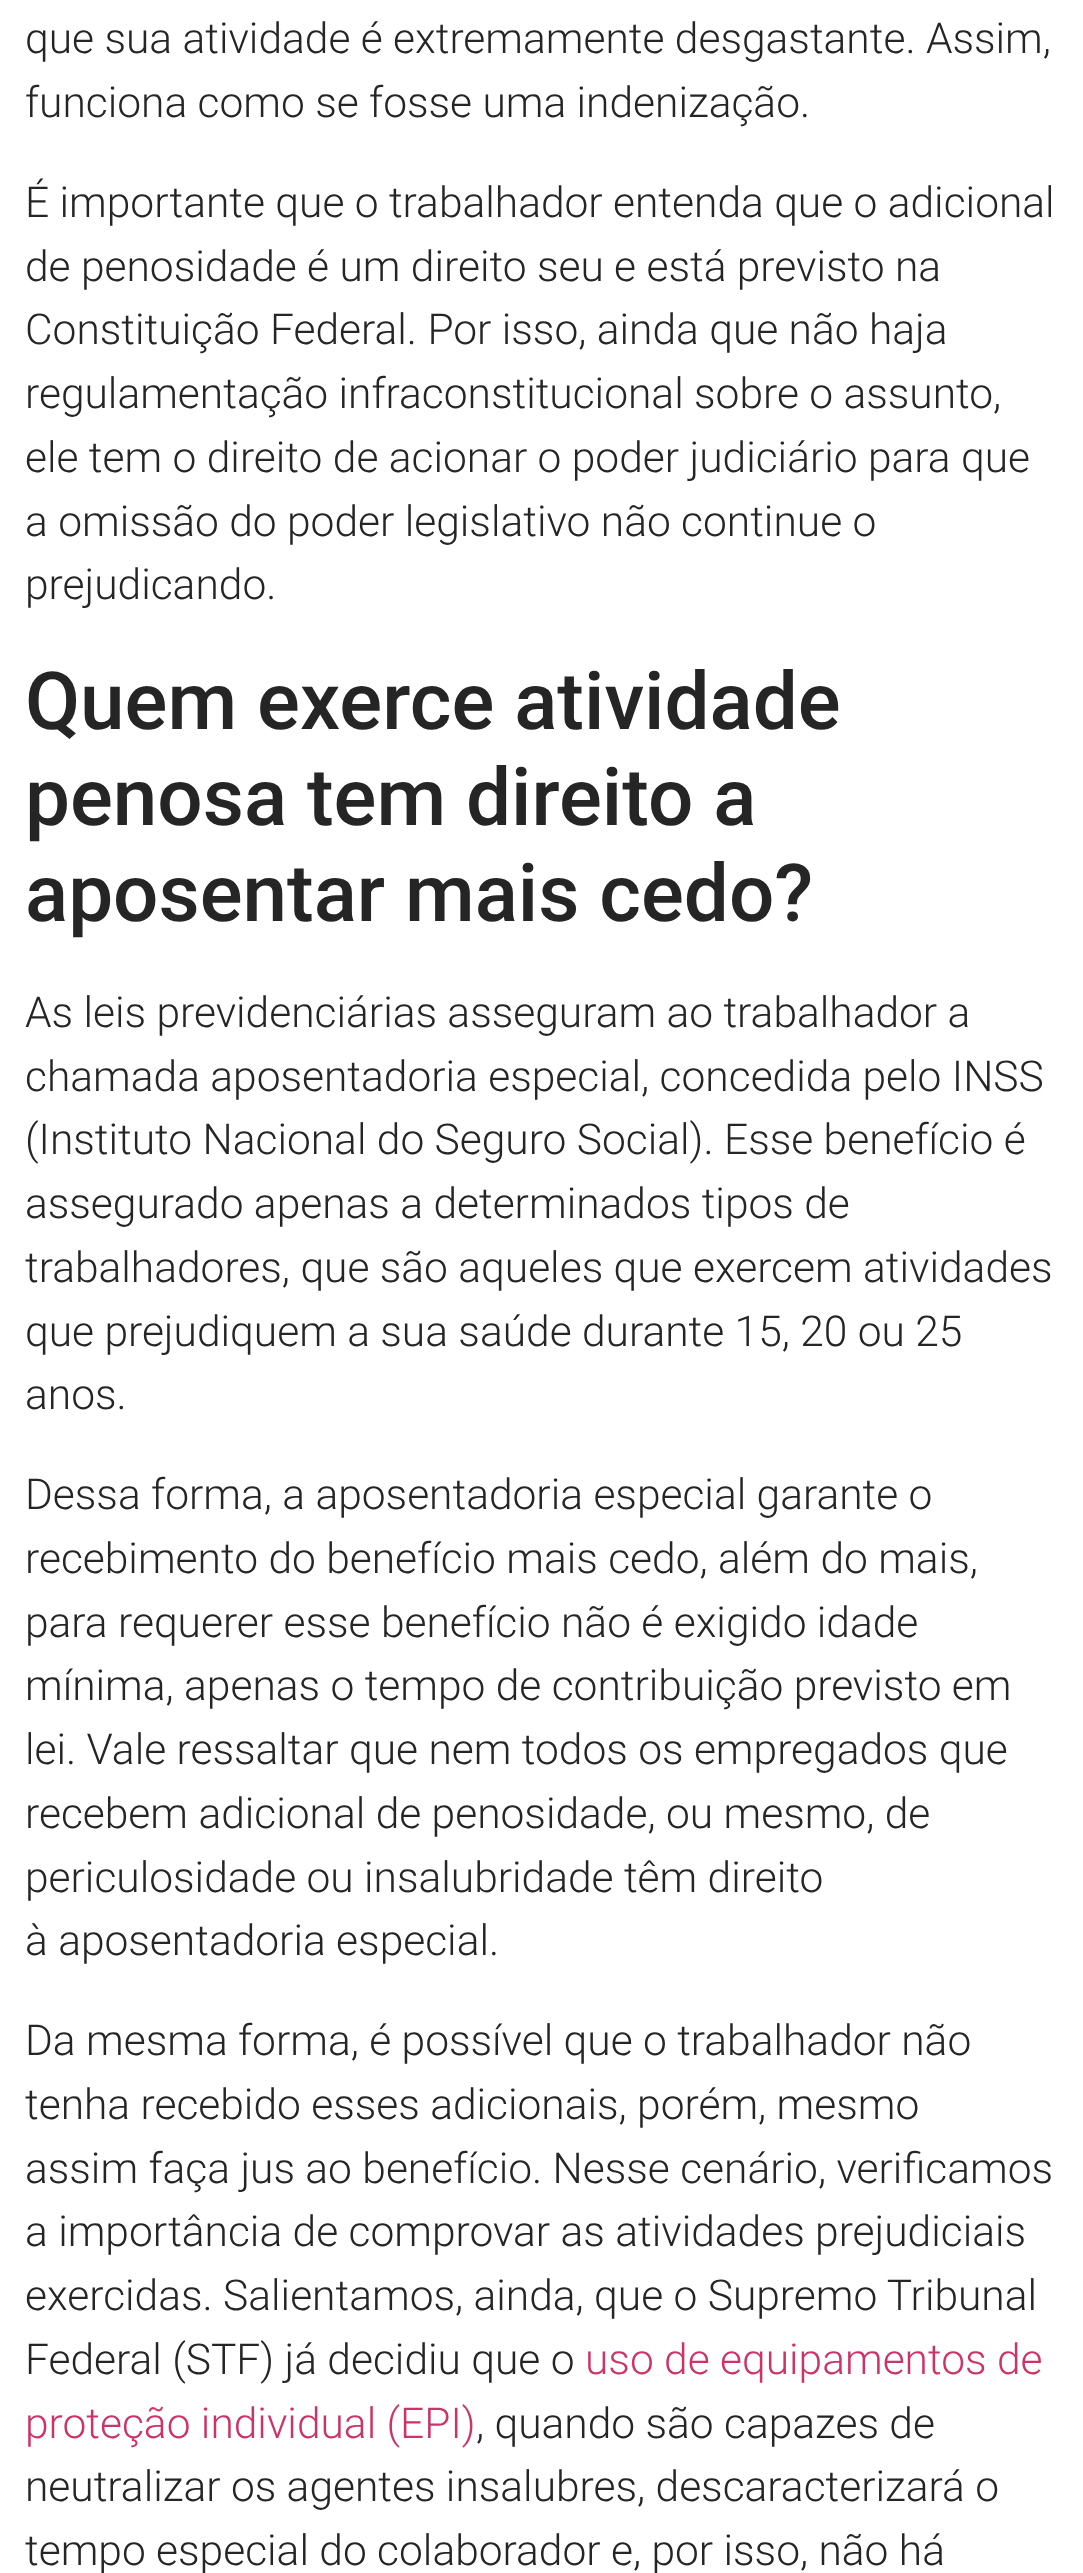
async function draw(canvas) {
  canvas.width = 1083
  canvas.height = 2573
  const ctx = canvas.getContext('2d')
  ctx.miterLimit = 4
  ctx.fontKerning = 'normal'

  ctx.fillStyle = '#fff'
  ctx.fillRect(0, 0, 1083, 2573)
  ctx.font = '300 42.5px Roboto'
  ctx.fillStyle = '#252525'
  ctx.fillText('que sua atividade é extremamente desgastante. Assim,', 25, 53)
  ctx.fillText('funciona como se fosse uma indenização.', 25, 117)
  ctx.fillText('É importante que o trabalhador entenda que o adicional', 25, 217)
  ctx.fillText('de penosidade é um direito seu e está previsto na', 25, 281)
  ctx.fillText('Constituição Federal. Por isso, ainda que não haja', 25, 344)
  ctx.fillText('regulamentação infraconstitucional sobre o assunto,', 25, 408)
  ctx.fillText('ele tem o direito de acionar o poder judiciário para que', 25, 472)
  ctx.fillText('a omissão do poder legislativo não continue o', 25, 536)
  ctx.fillText('prejudicando.', 25, 599)
  ctx.font = '500 80px Roboto'
  ctx.fillText('Quem exerce atividade', 25, 729)
  ctx.fillText('penosa tem direito a', 25, 825)
  ctx.fillText('aposentar mais cedo?', 25, 921)
  ctx.font = '300 42.5px Roboto'
  ctx.fillText('As leis previdenciárias asseguram ao trabalhador a', 25, 1027)
  ctx.fillText('chamada aposentadoria especial, concedida pelo INSS', 25, 1091)
  ctx.fillText('(Instituto Nacional do Seguro Social). Esse benefício é', 25, 1154)
  ctx.fillText('assegurado apenas a determinados tipos de', 25, 1218)
  ctx.fillText('trabalhadores, que são aqueles que exercem atividades', 25, 1282)
  ctx.fillText('que prejudiquem a sua saúde durante 15, 20 ou 25', 25, 1346)
  ctx.fillText('anos.', 25, 1409)
  ctx.fillText('Dessa forma, a aposentadoria especial garante o', 25, 1509)
  ctx.fillText('recebimento do benefício mais cedo, além do mais,', 25, 1573)
  ctx.fillText('para requerer esse benefício não é exigido idade', 25, 1637)
  ctx.fillText('mínima, apenas o tempo de contribuição previsto em', 25, 1700)
  ctx.fillText('lei. Vale ressaltar que nem todos os empregados que', 25, 1764)
  ctx.fillText('recebem adicional de penosidade, ou mesmo, de', 25, 1828)
  ctx.fillText('periculosidade ou insalubridade têm direito', 25, 1892)
  ctx.fillText('à aposentadoria especial.', 25, 1955)
  ctx.fillText('Da mesma forma, é possível que o trabalhador não', 25, 2055)
  ctx.fillText('tenha recebido esses adicionais, porém, mesmo', 25, 2119)
  ctx.fillText('assim faça jus ao benefício. Nesse cenário, verificamos', 25, 2183)
  ctx.fillText('a importância de comprovar as atividades prejudiciais', 25, 2246)
  ctx.fillText('exercidas. Salientamos, ainda, que o Supremo Tribunal', 25, 2310)
  ctx.fillText('Federal (STF) já decidiu que o', 25, 2374)
  ctx.fillStyle = '#c36'
  ctx.fillText('uso de equipamentos de', 585, 2374)
  ctx.fillText('proteção individual (EPI)', 25, 2438)
  ctx.fillStyle = '#252525'
  ctx.fillText(', quando são capazes de', 476, 2438)
  ctx.fillText('neutralizar os agentes insalubres, descaracterizará o', 25, 2501)
  ctx.fillText('tempo especial do colaborador e, por isso, não há', 25, 2565)
}

draw(document.querySelector('canvas'))
